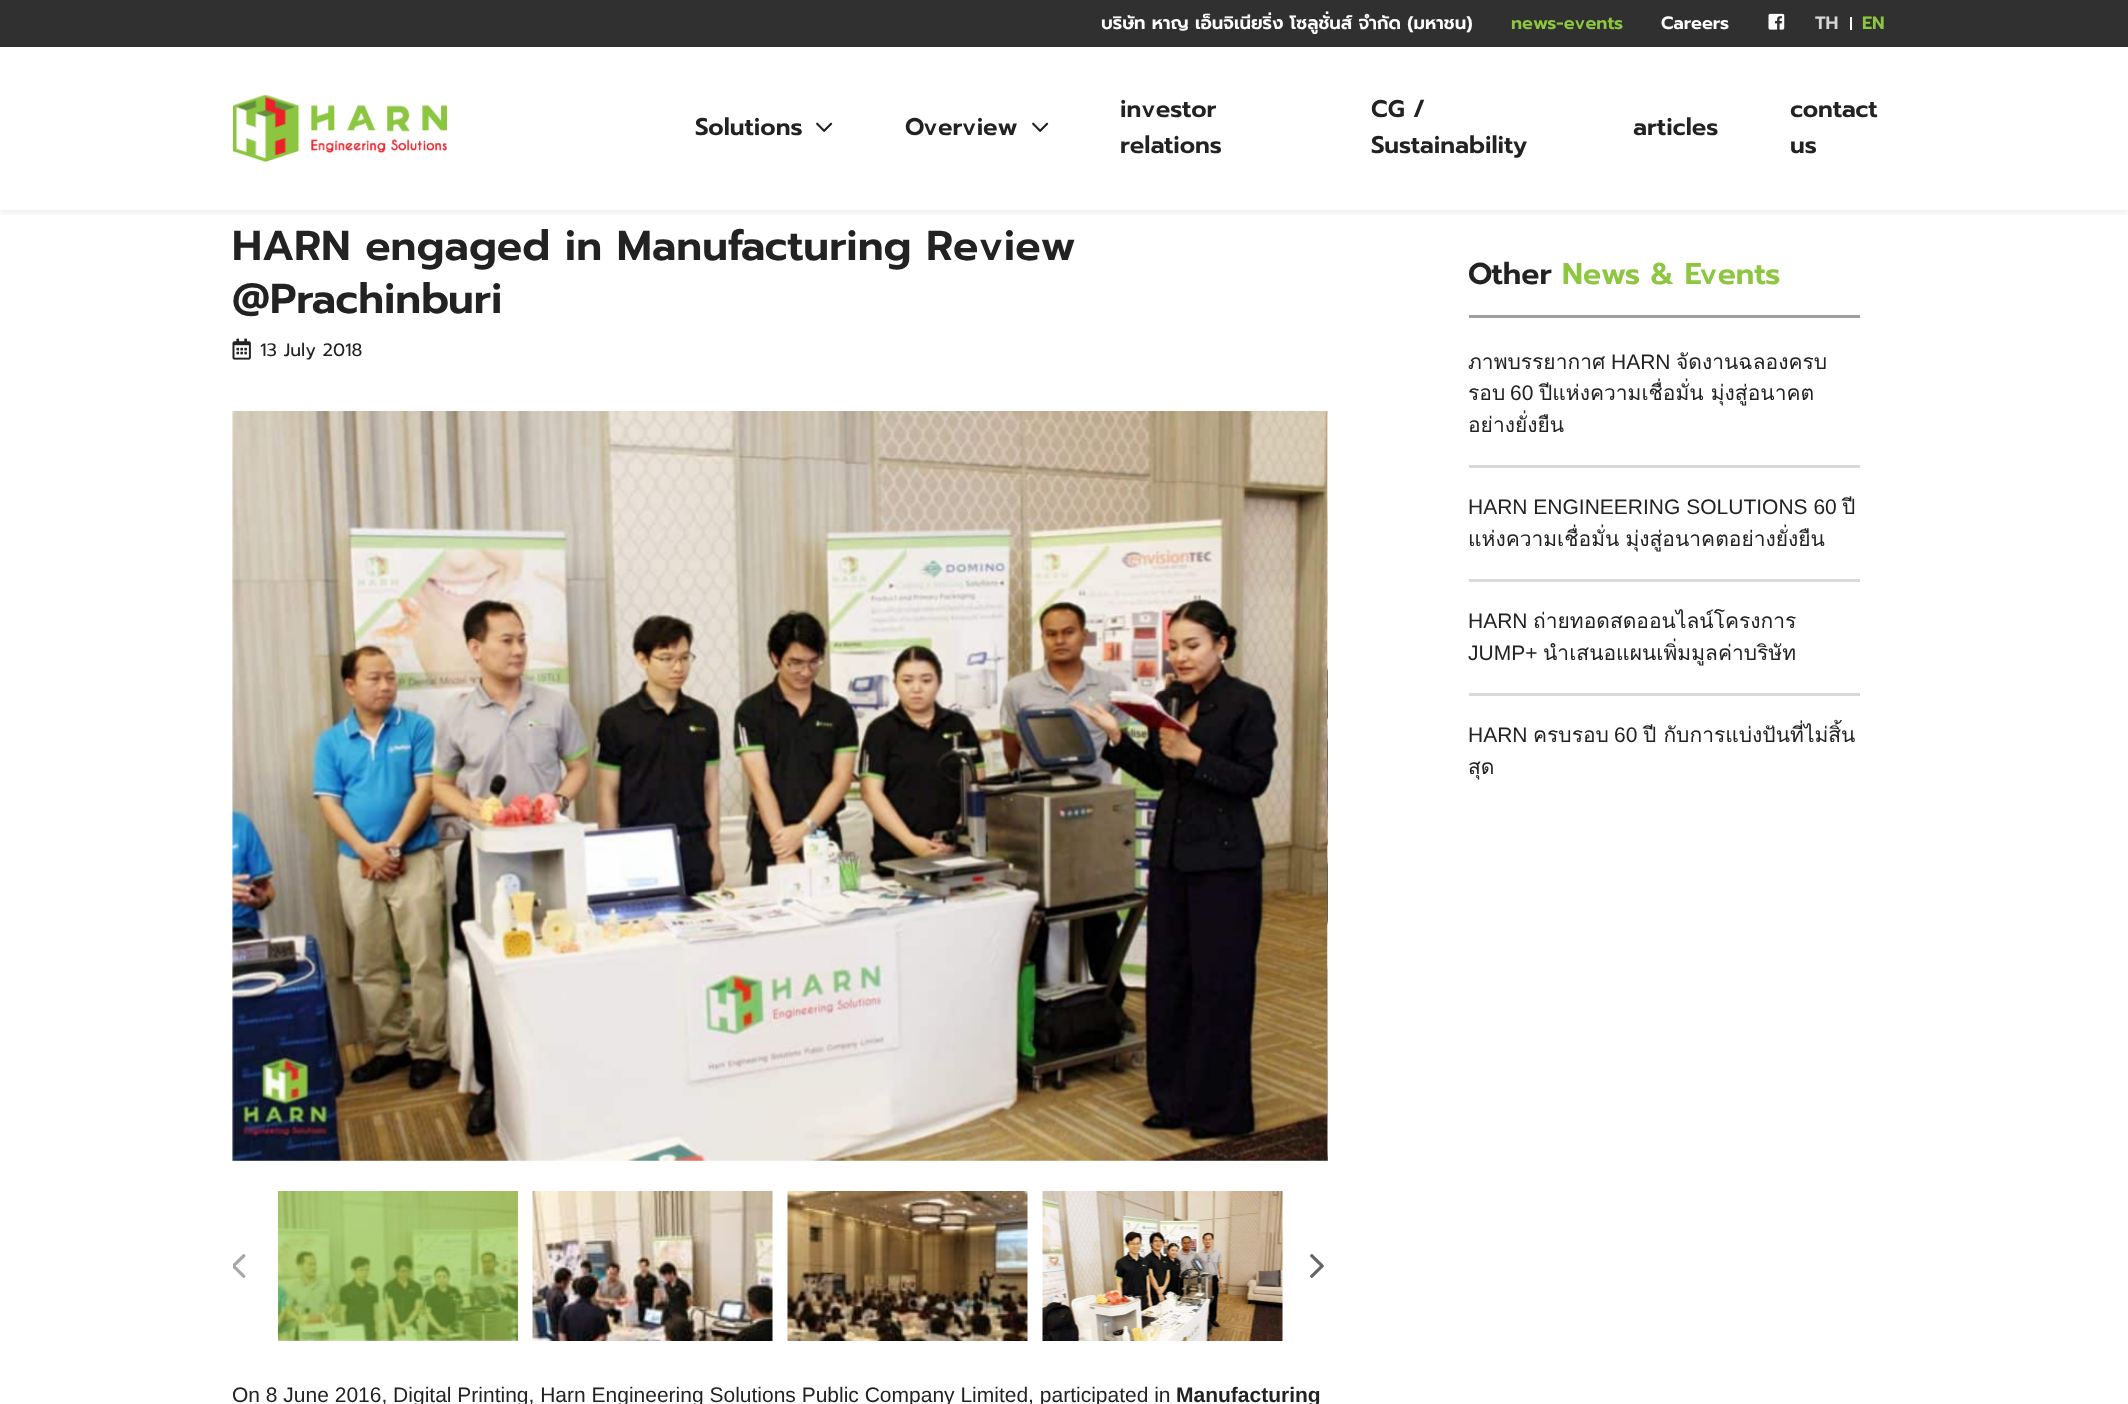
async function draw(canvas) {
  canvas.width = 2128
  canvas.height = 1404
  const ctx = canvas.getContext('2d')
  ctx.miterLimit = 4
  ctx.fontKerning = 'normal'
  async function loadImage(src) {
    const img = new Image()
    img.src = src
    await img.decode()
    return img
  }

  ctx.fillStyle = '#fff'
  ctx.fillRect(0, 0, 2128, 1404)
  ctx.fillStyle = '#303030'
  ctx.fillRect(0, 0, 2128, 47)
  ctx.font = '600 18px Prompt'
  ctx.fillStyle = '#fff'
  ctx.fillText('บริษัท หาญ เอ็นจิเนียริ่ง โซลูชั่นส์ จำกัด (มหาชน)', 1101, 29)
  ctx.fillStyle = '#8dc640'
  ctx.fillText('news-events', 1511, 29)
  ctx.fillStyle = '#fff'
  ctx.fillText('Careers', 1661, 29)
  ctx.drawImage(await loadImage('image0.png'), 1768, 13, 17, 17)
  ctx.fillStyle = '#d6d6d6'
  ctx.fillText('TH', 1815, 29)
  ctx.fillStyle = '#fff'
  ctx.fillRect(1850, 17, 2, 13)
  ctx.fillStyle = '#8dc640'
  ctx.fillText('EN', 1862, 29)
  ctx.save()
  ctx.beginPath()
  ctx.rect(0, 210, 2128, 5)
  ctx.clip()
  ctx.fillStyle = '#00000012'
  ctx.filter = 'blur(3px)'
  ctx.beginPath()
  ctx.rect(0, 50, 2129, 163)
  ctx.fill()
  ctx.filter = 'none'
  ctx.restore()
  ctx.drawImage(await loadImage('image1.png'), 233, 95, 214, 67)
  ctx.font = '600 24px Prompt'
  ctx.fillStyle = '#222'
  ctx.fillText('Solutions', 695, 135)
  ctx.drawImage(await loadImage('image2.png'), 816, 122, 17, 10)
  ctx.fillText('Overview', 905, 135)
  ctx.drawImage(await loadImage('image2.png'), 1032, 122, 17, 10)
  ctx.fillText('investor', 1120, 117)
  ctx.fillText('relations', 1120, 153)
  ctx.fillText('CG /', 1371, 117)
  ctx.fillText('Sustainability', 1371, 153)
  ctx.fillText('articles', 1633, 135)
  ctx.fillText('contact', 1790, 117)
  ctx.fillText('us', 1790, 153)
  ctx.font = '600 42px Prompt'
  ctx.fillText('HARN engaged in Manufacturing Review', 232, 260)
  ctx.fillText('@Prachinburi', 232, 313)
  ctx.drawImage(await loadImage('image3.png'), 232, 338, 19, 22)
  ctx.font = '18px Prompt'
  ctx.fillText('13 July 2018', 260, 356)
  ctx.drawImage(await loadImage('image4.png'), 232, 411, 1096, 750)
  ctx.drawImage(await loadImage('image5.png'), 1327, 411, 1, 750)
  ctx.drawImage(await loadImage('image6.png'), 278, 1191, 240, 150)
  ctx.drawImage(await loadImage('image7.png'), 532, 1191, 241, 150)
  ctx.drawImage(await loadImage('image8.png'), 787, 1191, 241, 150)
  ctx.drawImage(await loadImage('image9.png'), 1042, 1191, 241, 150)
  ctx.drawImage(await loadImage('image10.png'), 233, 1254, 13, 24)
  ctx.drawImage(await loadImage('image11.png'), 1310, 1254, 14, 24)
  ctx.font = '21px Liberation Sans'
  ctx.fillText('On 8 June 2016, Digital Printing, Harn Engineering Solutions Public Company Limited, participated in', 232, 1402)
  ctx.font = 'bold 21px Liberation Sans'
  ctx.fillText('Manufacturing', 1176, 1402)
  ctx.fillStyle = '#9e9e9e'
  ctx.fillRect(1469, 315, 391, 3)
  ctx.font = '600 30px Prompt'
  ctx.fillStyle = '#222'
  ctx.fillText('Other', 1468, 284)
  ctx.fillStyle = '#8dc640'
  ctx.fillText('News & Events', 1562, 284)
  ctx.fillStyle = '#d9d9d9'
  ctx.fillRect(1469, 465, 391, 3)
  ctx.font = '21px Loma'
  ctx.fillStyle = '#222'
  ctx.fillText('ภาพบรรยากาศ', 1468, 369)
  ctx.font = '21px Liberation Sans'
  ctx.fillText('HARN', 1611, 369)
  ctx.font = '21px Loma'
  ctx.fillText('จัดงานฉลองครบ', 1676, 369)
  ctx.fillText('รอบ', 1468, 400)
  ctx.font = '21px Liberation Sans'
  ctx.fillText('60', 1510, 400)
  ctx.font = '21px Loma'
  ctx.fillText('ปีแห่งความเชื่อมั่น มุ่งสู่อนาคต', 1539, 400)
  ctx.fillText('อย่างยั่งยืน', 1468, 432)
  ctx.fillStyle = '#d9d9d9'
  ctx.fillRect(1469, 579, 391, 3)
  ctx.font = '21px Liberation Sans'
  ctx.fillStyle = '#222'
  ctx.fillText('HARN ENGINEERING SOLUTIONS 60', 1468, 514)
  ctx.font = '21px Loma'
  ctx.fillText('ปี', 1842, 514)
  ctx.wordSpacing = '-1px'
  ctx.fillText('แห่งความเชื่อมั่น มุ่งสู่อนาคตอย่างยั่งยืน', 1468, 546)
  ctx.fillStyle = '#d9d9d9'
  ctx.fillRect(1469, 693, 391, 3)
  ctx.wordSpacing = '0px'
  ctx.font = '21px Liberation Sans'
  ctx.fillStyle = '#222'
  ctx.fillText('HARN', 1468, 628)
  ctx.font = '21px Loma'
  ctx.fillText('ถ่ายทอดสดออนไลน์โครงการ', 1533, 628)
  ctx.font = '21px Liberation Sans'
  ctx.fillText('JUMP+', 1468, 660)
  ctx.font = '21px Loma'
  ctx.fillText('นำเสนอแผนเพิ่มมูลค่าบริษัท', 1543, 660)
  ctx.font = '21px Liberation Sans'
  ctx.fillText('HARN', 1468, 742)
  ctx.font = '21px Loma'
  ctx.fillText('ครบรอบ', 1533, 742)
  ctx.font = '21px Liberation Sans'
  ctx.fillText('60', 1614, 742)
  ctx.font = '21px Loma'
  ctx.fillText('ปี กับการแบ่งปันที่ไม่สิ้น', 1643, 742)
  ctx.fillText('สุด', 1468, 774)
}

draw(document.querySelector('canvas'))
